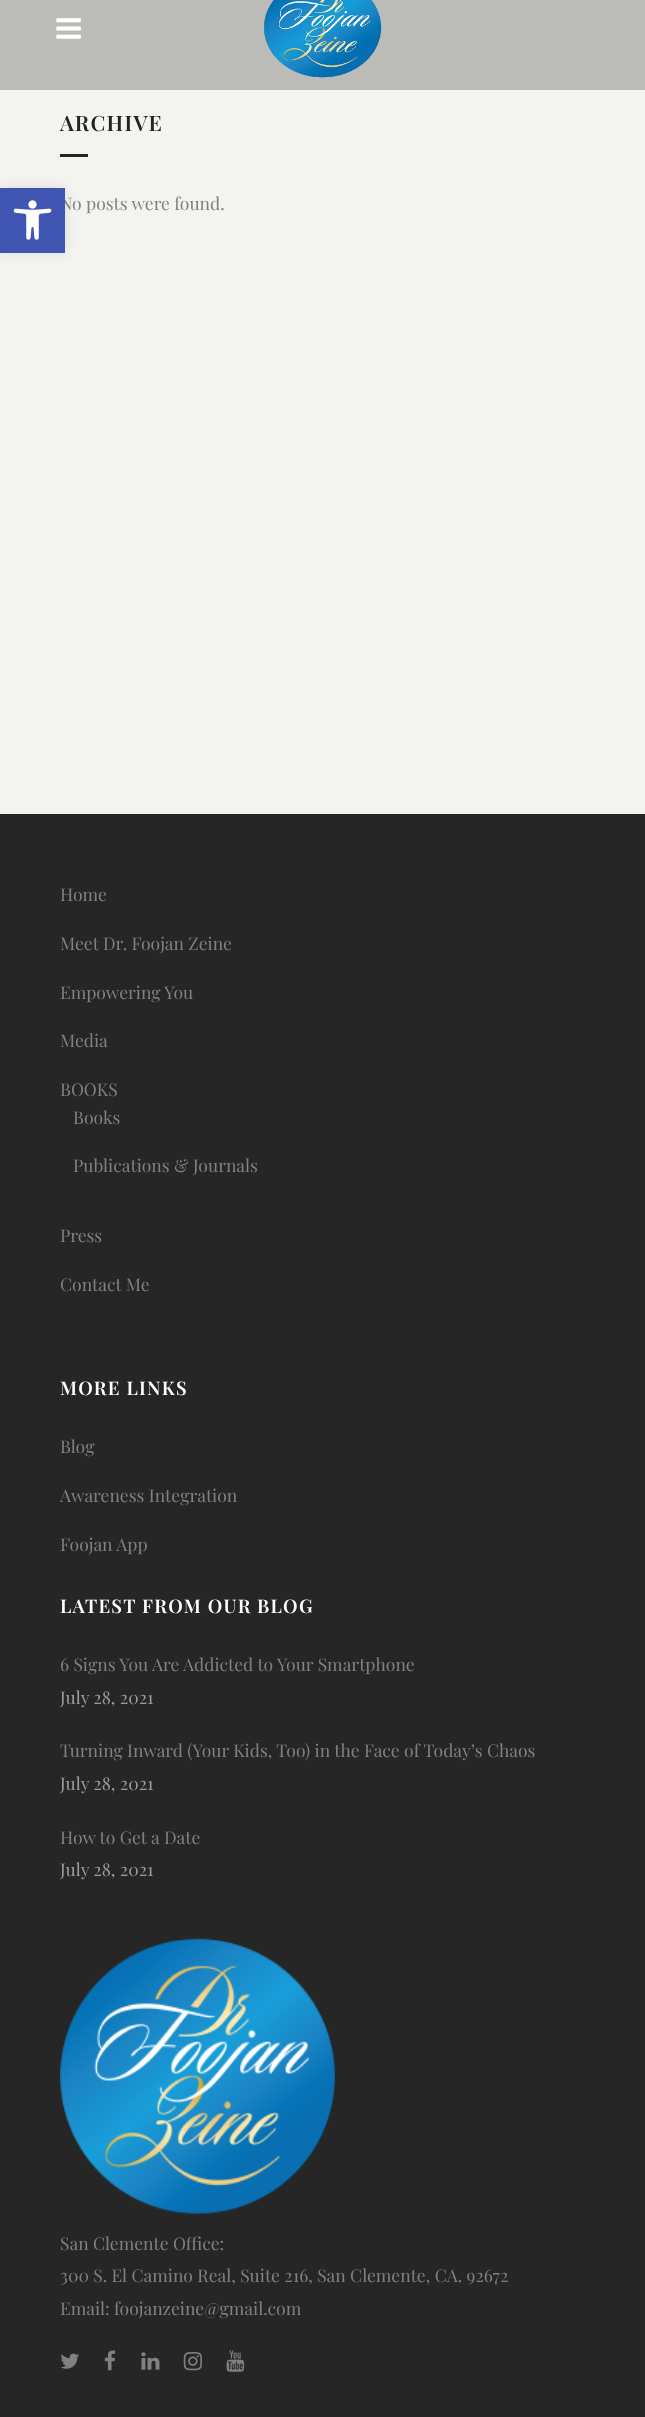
async function draw(canvas) {
  canvas.width = 645
  canvas.height = 2417
  const ctx = canvas.getContext('2d')
  ctx.miterLimit = 4
  ctx.fontKerning = 'normal'
  async function loadImage(src) {
    const img = new Image()
    img.src = src
    await img.decode()
    return img
  }

  ctx.fillStyle = '#f3f4f0'
  ctx.fillRect(0, 0, 645, 2417)
  ctx.fillStyle = '#0000001a'
  ctx.filter = 'blur(6px)'
  ctx.beginPath()
  ctx.rect(0, 188, 65, 65)
  ctx.fill()
  ctx.filter = 'none'
  ctx.font = '17.5px Playfair Display'
  ctx.fillStyle = '#818181'
  ctx.fillText('No posts were found.', 60, 210)
  ctx.fillStyle = '#4054b2'
  ctx.fillRect(0, 188, 65, 65)
  ctx.drawImage(await loadImage('image0.png'), 13, 200, 39, 40)
  ctx.fillStyle = '#bbbbb8'
  ctx.fillRect(0, 0, 645, 90)
  ctx.drawImage(await loadImage('image1.png'), 56, 18, 25, 21)
  ctx.drawImage(await loadImage('image2.png'), 264, 0, 118, 78)
  ctx.letterSpacing = '1.25px'
  ctx.font = '600 21.25px Playfair Display'
  ctx.fillStyle = '#242323'
  ctx.fillText('ARCHIVE', 60, 131)
  ctx.fillRect(60, 154, 28, 3)
  ctx.fillStyle = '#262626'
  ctx.fillRect(0, 814, 645, 1603)
  ctx.letterSpacing = '0px'
  ctx.font = '17.5px Playfair Display'
  ctx.fillStyle = '#818181'
  ctx.fillText('Home', 60, 901)
  ctx.fillText('Meet Dr. Foojan Zeine', 60, 950)
  ctx.fillText('Empowering You', 60, 999)
  ctx.fillText('Media', 60, 1047)
  ctx.fillText('BOOKS', 60, 1096)
  ctx.fillText('Books', 73, 1124)
  ctx.fillText('Publications & Journals', 73, 1172)
  ctx.fillText('Press', 60, 1242)
  ctx.fillText('Contact Me', 60, 1291)
  ctx.letterSpacing = '1.25px'
  ctx.font = '600 18.75px Playfair Display'
  ctx.fillStyle = '#fff'
  ctx.fillText('MORE LINKS', 60, 1395)
  ctx.letterSpacing = '0px'
  ctx.font = '17.5px Playfair Display'
  ctx.fillStyle = '#818181'
  ctx.fillText('Blog', 60, 1453)
  ctx.fillText('Awareness Integration', 60, 1502)
  ctx.fillText('Foojan App', 60, 1551)
  ctx.letterSpacing = '1.25px'
  ctx.font = '600 18.75px Playfair Display'
  ctx.fillStyle = '#fff'
  ctx.fillText('LATEST FROM OUR BLOG', 60, 1613)
  ctx.letterSpacing = '0px'
  ctx.font = '17.5px Playfair Display'
  ctx.fillStyle = '#818181'
  ctx.fillText('6 Signs You Are Addicted to Your Smartphone', 60, 1671)
  ctx.fillStyle = '#9d9d9d'
  ctx.fillText('July 28, 2021', 60, 1704)
  ctx.fillStyle = '#818181'
  ctx.fillText('Turning Inward (Your Kids, Too) in the Face of Today’s Chaos', 60, 1757)
  ctx.fillStyle = '#9d9d9d'
  ctx.fillText('July 28, 2021', 60, 1790)
  ctx.fillStyle = '#818181'
  ctx.fillText('How to Get a Date', 60, 1844)
  ctx.fillStyle = '#9d9d9d'
  ctx.fillText('July 28, 2021', 60, 1876)
  ctx.drawImage(await loadImage('image3.png'), 60, 1938, 275, 276)
  ctx.fillStyle = '#818181'
  ctx.fillText('San Clemente Office:', 60, 2250)
  ctx.fillText('300 S. El Camino Real, Suite 216, San Clemente, CA. 92672', 60, 2282)
  ctx.fillText('Email: foojanzeine@gmail.com', 60, 2315)
  ctx.drawImage(await loadImage('image4.png'), 60, 2353, 19, 16)
  ctx.drawImage(await loadImage('image5.png'), 104, 2350, 12, 21)
  ctx.drawImage(await loadImage('image6.png'), 141, 2352, 19, 18)
  ctx.drawImage(await loadImage('image7.png'), 183, 2352, 19, 19)
  ctx.drawImage(await loadImage('image8.png'), 226, 2350, 19, 22)
}

draw(document.querySelector('canvas'))
